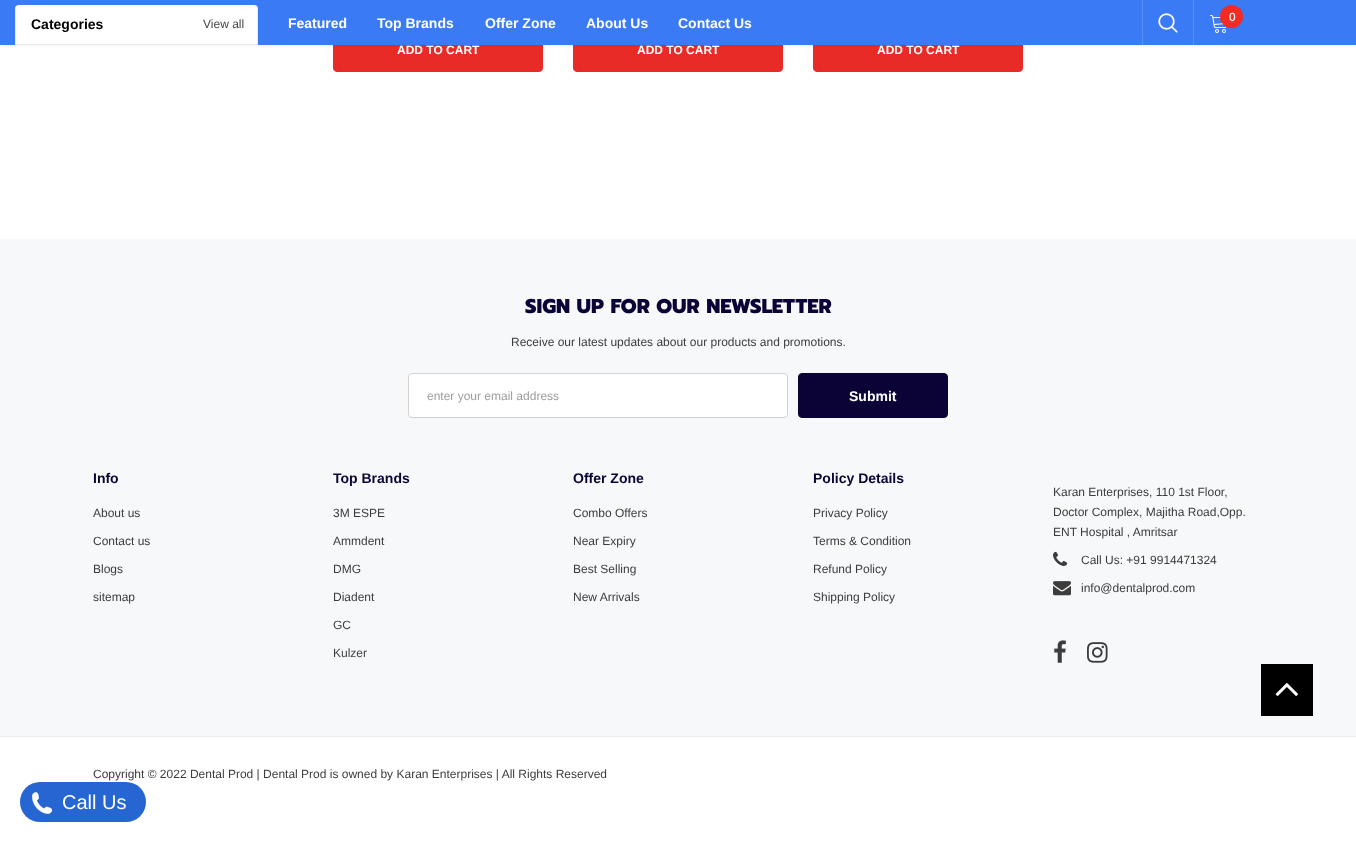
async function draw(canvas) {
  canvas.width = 1356
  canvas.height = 842
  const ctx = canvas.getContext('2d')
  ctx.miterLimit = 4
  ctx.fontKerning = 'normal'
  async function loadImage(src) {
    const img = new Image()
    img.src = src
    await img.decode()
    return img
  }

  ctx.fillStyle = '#fff'
  ctx.fillRect(0, 0, 1356, 842)
  ctx.fillStyle = '#e82b27'
  ctx.beginPath()
  ctx.roundRect(333.5, 27.5, 209, 44, 3.5)
  ctx.fill()
  ctx.strokeStyle = '#e82b27'
  ctx.stroke()
  ctx.beginPath()
  ctx.roundRect(573.5, 27.5, 209, 44, 3.5)
  ctx.fill()
  ctx.stroke()
  ctx.beginPath()
  ctx.roundRect(813.5, 27.5, 209, 44, 3.5)
  ctx.fill()
  ctx.stroke()
  ctx.fillStyle = '#0000001a'
  ctx.filter = 'blur(1.5px)'
  ctx.beginPath()
  ctx.rect(3, 6, 1350, 39)
  ctx.fill()
  ctx.filter = 'none'
  ctx.fillStyle = '#3a7af5'
  ctx.fillRect(0, 0, 1356, 45)
  ctx.fillStyle = '#fff'
  ctx.beginPath()
  ctx.roundRect(15, 5, 243, 40, [4, 4, 0, 0])
  ctx.fill()
  ctx.fillStyle = '#ebebeb'
  ctx.fillRect(257, 7, 1, 38)
  ctx.fillRect(15, 44, 243, 1)
  ctx.fillRect(15, 7, 1, 38)
  ctx.font = 'bold 14px Arimo'
  ctx.fillStyle = '#000'
  ctx.fillText('Categories', 31, 29)
  ctx.font = '12px Arimo'
  ctx.fillStyle = '#464646'
  ctx.fillText('View all', 203, 28)
  ctx.font = 'bold 14px Arimo'
  ctx.fillStyle = '#fff'
  ctx.fillText('Featured', 288, 28)
  ctx.fillText('Top Brands', 377, 28)
  ctx.fillText('Offer Zone', 485, 28)
  ctx.fillText('About Us', 586, 28)
  ctx.fillText('Contact Us', 678, 28)
  ctx.fillStyle = '#588ef7'
  ctx.fillRect(1142, 0, 1, 45)
  ctx.drawImage(await loadImage('image0.png'), 1158, 13, 20, 20)
  ctx.fillRect(1193, 0, 1, 45)
  ctx.drawImage(await loadImage('image1.png'), 1210, 15, 16, 18)
  ctx.fillStyle = '#f42b23'
  ctx.beginPath()
  ctx.arc(1231.5, 16.5, 11.5, 0, 2 * Math.PI)
  ctx.fill()
  ctx.font = '500 12px Arimo'
  ctx.fillStyle = '#fff'
  ctx.fillText('0', 1229, 21)
  ctx.font = 'bold 12px Arimo'
  ctx.fillText('ADD TO CART', 397, 54)
  ctx.fillText('ADD TO CART', 637, 54)
  ctx.fillText('ADD TO CART', 877, 54)
  ctx.fillStyle = '#f7f8fa'
  ctx.fillRect(0, 239, 1356, 497)
  ctx.font = '800 20px Prompt'
  ctx.fillStyle = '#0b0335'
  ctx.fillText('SIGN UP FOR OUR NEWSLETTER', 525, 313)
  ctx.font = '12px Arimo'
  ctx.fillStyle = '#3c3c3c'
  ctx.fillText('Receive our latest updates about our products and promotions.', 511, 346)
  ctx.fillStyle = '#fff'
  ctx.beginPath()
  ctx.roundRect(408.5, 373.5, 379, 44, 3.5)
  ctx.fill()
  ctx.strokeStyle = '#d2d2d2'
  ctx.stroke()
  ctx.fillStyle = '#9d9d9d'
  ctx.fillText('enter your email address', 427, 400)
  ctx.fillStyle = '#0b0335'
  ctx.beginPath()
  ctx.roundRect(798.5, 373.5, 149, 44, 3.5)
  ctx.fill()
  ctx.strokeStyle = '#0b0335'
  ctx.stroke()
  ctx.font = 'bold 14px Arimo'
  ctx.fillStyle = '#fff'
  ctx.fillText('Submit', 849, 401)
  ctx.fillStyle = '#0b0335'
  ctx.fillText('Info', 93, 483)
  ctx.font = '12px Arimo'
  ctx.fillStyle = '#3c3c3c'
  ctx.fillText('About us', 93, 517)
  ctx.fillText('Contact us', 93, 545)
  ctx.fillText('Blogs', 93, 573)
  ctx.fillText('sitemap', 93, 601)
  ctx.font = 'bold 14px Arimo'
  ctx.fillStyle = '#0b0335'
  ctx.fillText('Top Brands', 333, 483)
  ctx.font = '12px Arimo'
  ctx.fillStyle = '#3c3c3c'
  ctx.fillText('3M ESPE', 333, 517)
  ctx.fillText('Ammdent', 333, 545)
  ctx.fillText('DMG', 333, 573)
  ctx.fillText('Diadent', 333, 601)
  ctx.fillText('GC', 333, 629)
  ctx.fillText('Kulzer', 333, 657)
  ctx.font = 'bold 14px Arimo'
  ctx.fillStyle = '#0b0335'
  ctx.fillText('Offer Zone', 573, 483)
  ctx.font = '12px Arimo'
  ctx.fillStyle = '#3c3c3c'
  ctx.fillText('Combo Offers', 573, 517)
  ctx.fillText('Near Expiry', 573, 545)
  ctx.fillText('Best Selling', 573, 573)
  ctx.fillText('New Arrivals', 573, 601)
  ctx.font = 'bold 14px Arimo'
  ctx.fillStyle = '#0b0335'
  ctx.fillText('Policy Details', 813, 483)
  ctx.font = '12px Arimo'
  ctx.fillStyle = '#3c3c3c'
  ctx.fillText('Privacy Policy', 813, 517)
  ctx.fillText('Terms & Condition', 813, 545)
  ctx.fillText('Refund Policy', 813, 573)
  ctx.fillText('Shipping Policy', 813, 601)
  ctx.fillText('Karan Enterprises, 110 1st Floor,', 1053, 496)
  ctx.fillText('Doctor Complex, Majitha Road,Opp.', 1053, 516)
  ctx.fillText('ENT Hospital , Amritsar', 1053, 536)
  ctx.drawImage(await loadImage('image2.png'), 1053, 551, 15, 15)
  ctx.fillText('Call Us: +91 9914471324', 1081, 564)
  ctx.drawImage(await loadImage('image3.png'), 1053, 581, 18, 15)
  ctx.fillText('info@dentalprod.com', 1081, 592)
  ctx.drawImage(await loadImage('image4.png'), 1054, 640, 12, 23)
  ctx.drawImage(await loadImage('image5.png'), 1087, 642, 21, 21)
  ctx.fillStyle = '#ebebeb'
  ctx.fillRect(0, 736, 1356, 1)
  ctx.fillStyle = '#3c3c3c'
  ctx.fillText('Copyright © 2022 Dental Prod | Dental Prod is owned by Karan Enterprises | All Rights Reserved', 93, 778)
  ctx.fillStyle = '#000'
  ctx.fillRect(1261, 664, 52, 52)
  ctx.drawImage(await loadImage('image6.png'), 1275, 683, 23, 13)
  ctx.fillStyle = '#2566d3'
  ctx.beginPath()
  ctx.roundRect(20, 782, 126, 40, 20)
  ctx.fill()
  ctx.drawImage(await loadImage('image7.png'), 32, 792, 21, 22)
  ctx.font = '20px Arimo'
  ctx.fillStyle = '#fff'
  ctx.fillText('Call Us', 62, 809)
}

draw(document.querySelector('canvas'))
